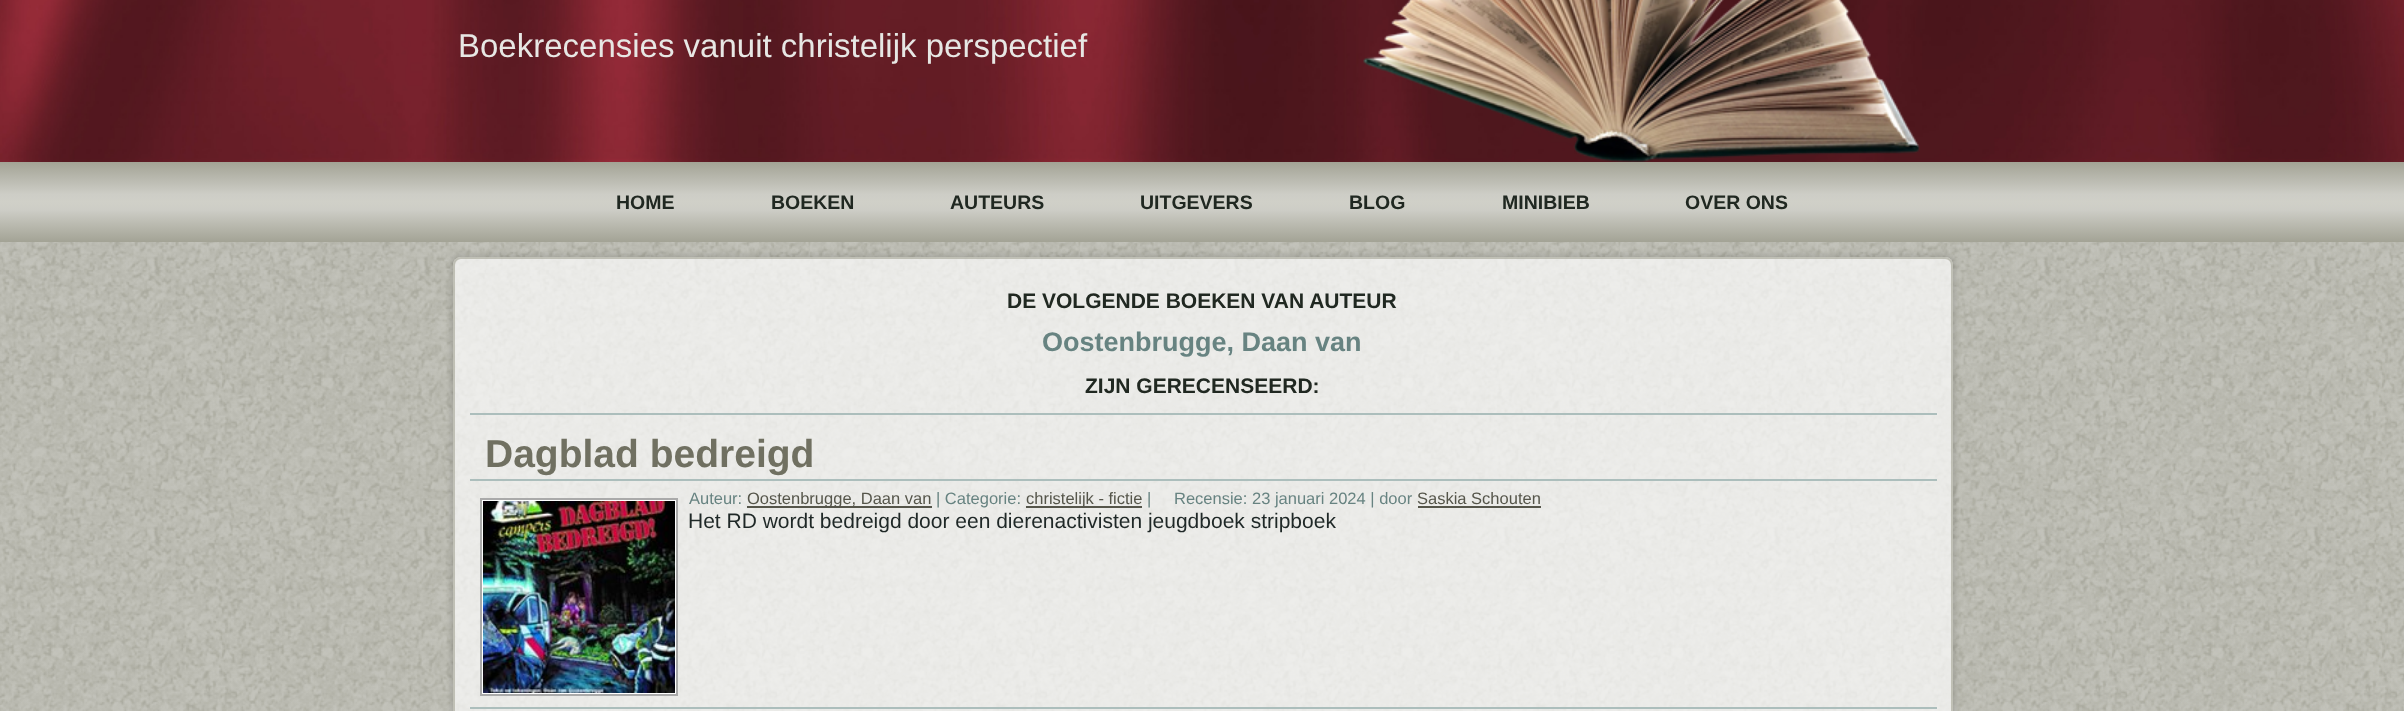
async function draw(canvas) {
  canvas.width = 2404
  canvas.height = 711
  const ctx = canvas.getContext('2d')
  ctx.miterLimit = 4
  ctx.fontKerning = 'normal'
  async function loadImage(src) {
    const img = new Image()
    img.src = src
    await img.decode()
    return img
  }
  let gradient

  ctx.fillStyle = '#fff'
  ctx.fillRect(0, 0, 2404, 711)
  ctx.drawImage(await loadImage('image0.png'), 0, 242, 2404, 469)
  ctx.drawImage(await loadImage('image1.png'), 0, 0, 2404, 162)
  ctx.font = '33px Liberation Sans'
  ctx.fillStyle = '#e7e7e4'
  ctx.fillText('Boekrecensies vanuit christelijk perspectief', 458, 57)
  ctx.drawImage(await loadImage('image2.png'), 1363, 0, 557, 162)
  gradient = ctx.createLinearGradient(1202, 162, 1202, 242)
  gradient.addColorStop(0, '#a3a395')
  gradient.addColorStop(0.4, '#cdcdc6')
  gradient.addColorStop(0.5, '#d0d0c8')
  gradient.addColorStop(0.6, '#cdcdc6')
  gradient.addColorStop(1, '#a3a395')
  ctx.fillStyle = gradient
  ctx.fillRect(0, 162, 2404, 80)
  ctx.font = 'bold 19.5px Liberation Sans'
  ctx.fillStyle = '#202821'
  ctx.fillText('HOME', 616, 209)
  ctx.fillText('BOEKEN', 771, 209)
  ctx.fillText('AUTEURS', 950, 209)
  ctx.fillText('UITGEVERS', 1140, 209)
  ctx.fillText('BLOG', 1349, 209)
  ctx.fillText('MINIBIEB', 1502, 209)
  ctx.fillText('OVER ONS', 1685, 209)
  ctx.save()
  ctx.beginPath()
  ctx.moveTo(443, 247)
  ctx.lineTo(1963, 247)
  ctx.lineTo(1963, 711)
  ctx.lineTo(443, 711)
  ctx.closePath()
  ctx.moveTo(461, 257)
  ctx.lineTo(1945, 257)
  ctx.bezierCurveTo(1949.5, 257, 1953, 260.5, 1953, 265)
  ctx.lineTo(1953, 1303)
  ctx.bezierCurveTo(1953, 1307.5, 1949.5, 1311, 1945, 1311)
  ctx.lineTo(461, 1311)
  ctx.bezierCurveTo(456.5, 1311, 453, 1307.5, 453, 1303)
  ctx.lineTo(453, 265)
  ctx.bezierCurveTo(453, 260.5, 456.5, 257, 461, 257)
  ctx.closePath()
  ctx.clip('evenodd')
  ctx.fillStyle = '#0000001a'
  ctx.filter = 'blur(2px)'
  ctx.beginPath()
  ctx.roundRect(450, 254, 1506, 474, 11)
  ctx.fill()
  ctx.filter = 'none'
  ctx.restore()
  ctx.fillStyle = '#ffffffb3'
  ctx.beginPath()
  ctx.roundRect(453, 257, 1500, 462, 8)
  ctx.fill()
  ctx.beginPath()
  ctx.roundRect(454, 258, 1498, 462, 7)
  ctx.strokeStyle = '#a3a39599'
  ctx.lineWidth = 2
  ctx.stroke()
  ctx.font = 'bold 21px Liberation Sans'
  ctx.fillStyle = '#202821'
  ctx.fillText('DE VOLGENDE BOEKEN VAN AUTEUR', 1007, 308)
  ctx.font = 'bold 27px Liberation Sans'
  ctx.fillStyle = '#678381'
  ctx.fillText('Oostenbrugge, Daan van', 1042, 351)
  ctx.font = 'bold 21px Liberation Sans'
  ctx.fillStyle = '#202821'
  ctx.fillText('ZIJN GERECENSEERD:', 1085, 393)
  ctx.fillStyle = '#acbebc'
  ctx.fillRect(470, 413, 1467, 2)
  ctx.fillRect(470, 479, 1467, 2)
  ctx.font = 'bold 39px Liberation Sans'
  ctx.fillStyle = '#707061'
  ctx.fillText('Dagblad bedreigd', 485, 467)
  ctx.fillStyle = '#fff'
  ctx.beginPath()
  ctx.rect(481, 499, 196, 196)
  ctx.fill()
  ctx.strokeStyle = '#aaa'
  ctx.stroke()
  ctx.drawImage(await loadImage('image3.png'), 483, 501, 192, 192)
  ctx.font = '16.5px Liberation Sans'
  ctx.fillStyle = '#678381'
  ctx.fillText('Auteur:', 689, 504)
  ctx.fillStyle = '#55554a'
  ctx.fillRect(747, 506, 185, 2)
  ctx.fillText('Oostenbrugge, Daan van', 747, 504)
  ctx.fillStyle = '#678381'
  ctx.fillText('| Categorie:', 936, 504)
  ctx.fillStyle = '#55554a'
  ctx.fillRect(1026, 506, 116, 2)
  ctx.fillText('christelijk - fictie', 1026, 504)
  ctx.fillStyle = '#678381'
  ctx.fillText('|', 1147, 504)
  ctx.fillText('Recensie: 23 januari 2024 | door', 1174, 504)
  ctx.fillStyle = '#55554a'
  ctx.fillText('Saskia Schouten', 1417, 504)
  ctx.fillRect(1418, 506, 123, 2)
  ctx.font = '21px Liberation Sans'
  ctx.fillStyle = '#1f2827'
  ctx.fillText('Het RD wordt bedreigd door een dierenactivisten jeugdboek stripboek', 688, 528)
  ctx.fillStyle = '#acbebc'
  ctx.fillRect(470, 707, 1467, 2)
}

draw(document.querySelector('canvas'))
